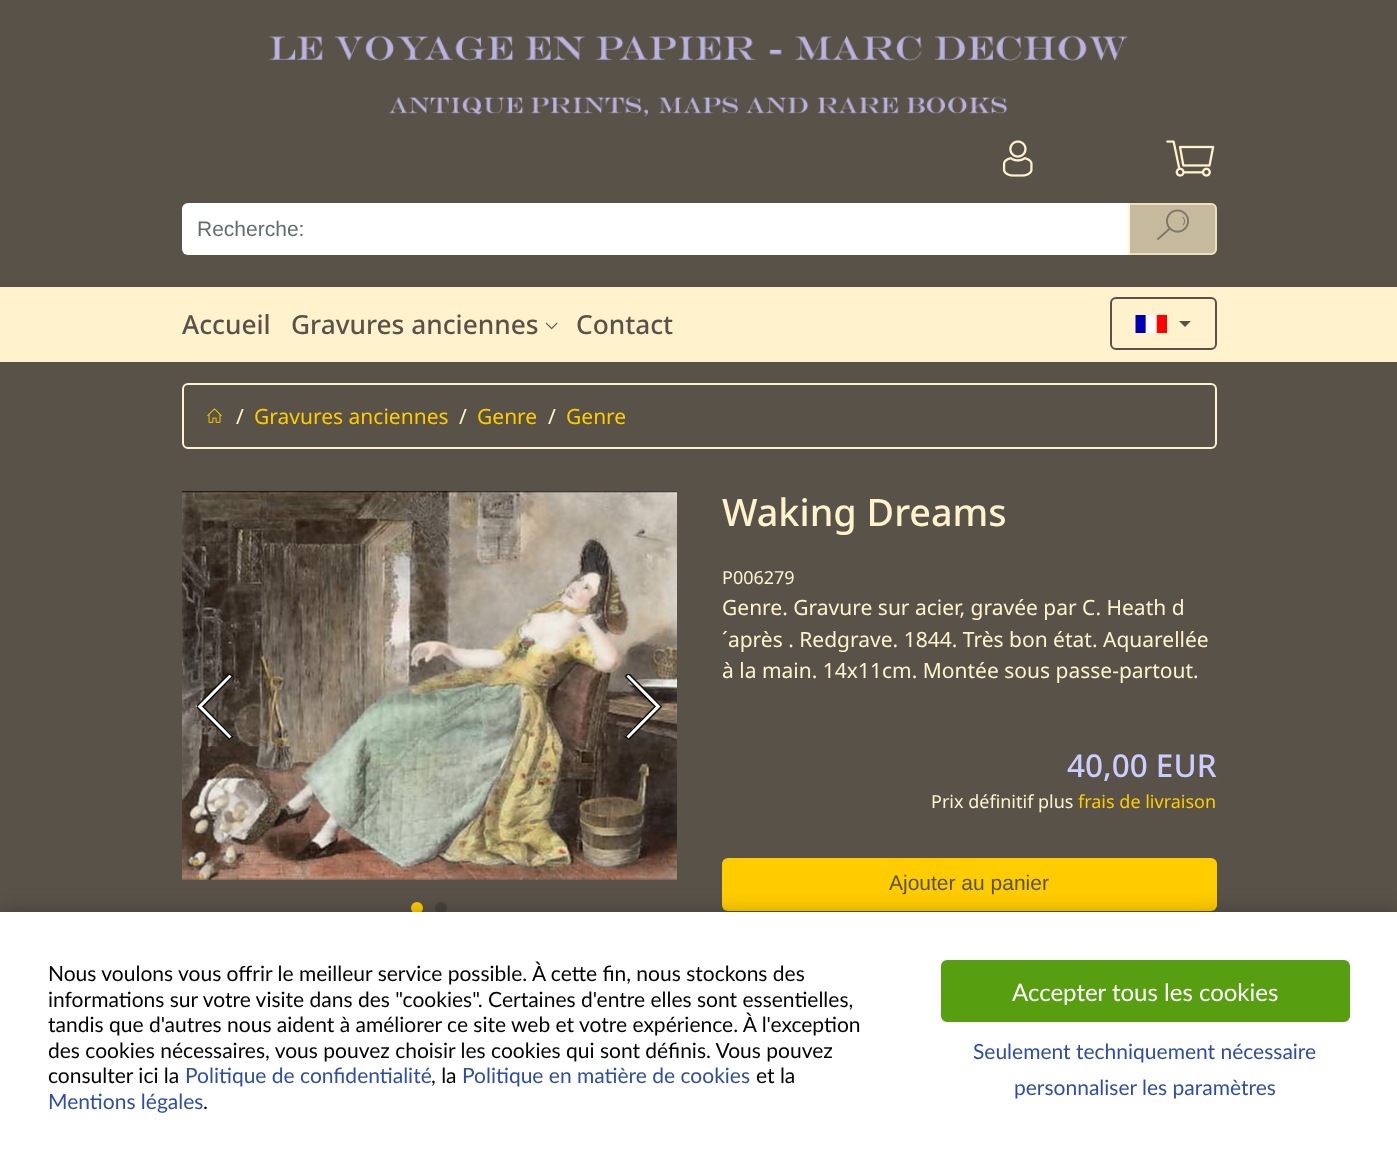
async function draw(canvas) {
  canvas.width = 1397
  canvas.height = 1160
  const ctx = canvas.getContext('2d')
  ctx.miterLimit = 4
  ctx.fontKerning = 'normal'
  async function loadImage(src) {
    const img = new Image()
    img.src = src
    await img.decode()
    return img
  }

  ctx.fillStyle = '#595249'
  ctx.fillRect(0, 0, 1397, 1160)
  ctx.drawImage(await loadImage('image0.png'), 269, 35, 859, 82)
  ctx.drawImage(await loadImage('image1.png'), 1002, 140, 31, 37)
  ctx.drawImage(await loadImage('image2.png'), 1166, 140, 49, 37)
  ctx.fillStyle = '#fff'
  ctx.beginPath()
  ctx.roundRect(182, 203, 948, 52, [6, 0, 0, 6])
  ctx.fill()
  ctx.font = '21px Liberation Sans'
  ctx.fillStyle = '#636c72'
  ctx.fillText('Recherche:', 197, 236)
  ctx.fillStyle = '#fff2cca6'
  ctx.beginPath()
  ctx.roundRect(1128, 203, 89, 52, [0, 6, 6, 0])
  ctx.fill()
  ctx.beginPath()
  ctx.roundRect(1129, 204, 87, 50, [0, 5, 5, 0])
  ctx.strokeStyle = '#fff2cca6'
  ctx.lineWidth = 2
  ctx.stroke()
  ctx.drawImage(await loadImage('image3.png'), 1157, 209, 32, 31)
  ctx.fillStyle = '#fff2cc'
  ctx.fillRect(0, 287, 1397, 75)
  ctx.font = '500 26.25px Noto Sans'
  ctx.fillStyle = '#595249'
  ctx.fillText('Accueil', 182, 334)
  ctx.fillText('Gravures anciennes', 291, 334)
  ctx.drawImage(await loadImage('image4.png'), 545, 322, 13, 8)
  ctx.fillText('Contact', 576, 334)
  ctx.beginPath()
  ctx.roundRect(1111, 298, 105, 51, 5)
  ctx.strokeStyle = '#595249'
  ctx.stroke()
  ctx.drawImage(await loadImage('image5.png'), 1135, 315, 32, 18)
  ctx.beginPath()
  ctx.moveTo(1179, 321)
  ctx.lineTo(1191, 321)
  ctx.lineTo(1185, 327)
  ctx.closePath()
  ctx.fill()
  ctx.beginPath()
  ctx.roundRect(183, 384, 1033, 64, 5)
  ctx.strokeStyle = '#fff2cc'
  ctx.stroke()
  ctx.drawImage(await loadImage('image6.png'), 207, 408, 15, 15)
  ctx.font = '21px Noto Sans'
  ctx.fillStyle = '#fff2cc'
  ctx.fillText('/', 236, 424)
  ctx.fillStyle = '#fc0'
  ctx.fillText('Gravures anciennes', 254, 424)
  ctx.fillStyle = '#fff2cc'
  ctx.fillText('/', 459, 424)
  ctx.fillStyle = '#fc0'
  ctx.fillText('Genre', 477, 424)
  ctx.fillStyle = '#fff2cc'
  ctx.fillText('/', 548, 424)
  ctx.fillStyle = '#fc0'
  ctx.fillText('Genre', 566, 424)
  ctx.drawImage(await loadImage('image7.png'), 182, 491, 495, 389)
  ctx.fillStyle = '#fff'
  ctx.beginPath()
  ctx.moveTo(196, 706)
  ctx.lineTo(230, 674)
  ctx.lineTo(233, 677)
  ctx.lineTo(203, 706)
  ctx.lineTo(233, 736)
  ctx.lineTo(230, 740)
  ctx.closePath()
  ctx.fill()
  ctx.save()
  ctx.beginPath()
  ctx.rect(197, 674, 40, 66)
  ctx.clip()
  ctx.beginPath()
  ctx.moveTo(196.5, 706.5)
  ctx.lineTo(229.5, 673.5)
  ctx.lineTo(232.5, 676.5)
  ctx.lineTo(203, 706.5)
  ctx.lineTo(232.5, 736.5)
  ctx.lineTo(229.5, 739.5)
  ctx.closePath()
  ctx.strokeStyle = '#0a0a0a'
  ctx.lineWidth = 1.5
  ctx.stroke()
  ctx.restore()
  ctx.beginPath()
  ctx.moveTo(662, 706)
  ctx.lineTo(628, 740)
  ctx.lineTo(625, 736)
  ctx.lineTo(655, 706)
  ctx.lineTo(625, 677)
  ctx.lineTo(628, 674)
  ctx.closePath()
  ctx.fill()
  ctx.save()
  ctx.beginPath()
  ctx.rect(621, 674, 41, 66)
  ctx.clip()
  ctx.beginPath()
  ctx.moveTo(661.5, 706.5)
  ctx.lineTo(628.5, 739.5)
  ctx.lineTo(625.5, 736.5)
  ctx.lineTo(655, 706.5)
  ctx.lineTo(625.5, 676.5)
  ctx.lineTo(628.5, 673.5)
  ctx.closePath()
  ctx.strokeStyle = '#0a0a0a'
  ctx.lineWidth = 1.5
  ctx.stroke()
  ctx.restore()
  ctx.fillStyle = '#fc0'
  ctx.beginPath()
  ctx.arc(417, 908, 6, 0, 2 * Math.PI)
  ctx.fill()
  ctx.fillStyle = '#47423a'
  ctx.beginPath()
  ctx.arc(441, 908, 6, 0, 2 * Math.PI)
  ctx.fill()
  ctx.font = '500 37.75px Noto Sans'
  ctx.fillStyle = '#fff2cc'
  ctx.fillText('Waking Dreams', 722, 526)
  ctx.font = '18px Noto Sans'
  ctx.fillText('P006279', 722, 584)
  ctx.font = '21px Noto Sans'
  ctx.fillText('Genre. Gravure sur acier, gravée par C. Heath d', 722, 615)
  ctx.fillText('´après . Redgrave. 1844. Très bon état. Aquarellée', 722, 647)
  ctx.fillText('à la main. 14x11cm. Montée sous passe-partout.', 722, 678)
  ctx.font = '500 31.5px Noto Sans'
  ctx.fillStyle = '#ccf'
  ctx.fillText('40,00 EUR', 1067, 777)
  ctx.font = '18px Noto Sans'
  ctx.fillStyle = '#fff2cc'
  ctx.fillText('Prix définitif plus', 931, 808)
  ctx.fillStyle = '#fc0'
  ctx.fillText('frais de livraison', 1078, 808)
  ctx.beginPath()
  ctx.roundRect(722, 858, 495, 53, 6)
  ctx.fill()
  ctx.font = '21px Liberation Sans'
  ctx.fillStyle = '#595249'
  ctx.fillText('Ajouter au panier', 889, 890)
  ctx.fillStyle = '#00000040'
  ctx.filter = 'blur(9px)'
  ctx.beginPath()
  ctx.rect(0, 912, 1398, 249)
  ctx.fill()
  ctx.filter = 'none'
  ctx.fillStyle = '#fff'
  ctx.fillRect(0, 912, 1397, 248)
  ctx.font = '21px Lato'
  ctx.fillStyle = '#000'
  ctx.fillText('Nous voulons vous offrir le meilleur service possible. À cette fin, nous stockons des', 48, 981)
  ctx.fillText('informations sur votre visite dans des "cookies". Certaines d\'entre elles sont essentielles,', 48, 1007)
  ctx.fillText('tandis que d\'autres nous aident à améliorer ce site web et votre expérience. À l\'exception', 48, 1032)
  ctx.fillText('des cookies nécessaires, vous pouvez choisir les cookies qui sont définis. Vous pouvez', 48, 1058)
  ctx.fillText('consulter ici la', 48, 1083)
  ctx.fillStyle = '#2e4da7'
  ctx.fillText('Politique de confidentialité', 185, 1083)
  ctx.fillStyle = '#000'
  ctx.fillText(', la', 431, 1083)
  ctx.fillStyle = '#2e4da7'
  ctx.fillText('Politique en matière de cookies', 462, 1083)
  ctx.fillStyle = '#000'
  ctx.fillText('et la', 756, 1083)
  ctx.fillStyle = '#2e4da7'
  ctx.fillText('Mentions légales', 48, 1109)
  ctx.fillStyle = '#000'
  ctx.fillText('.', 203, 1109)
  ctx.fillStyle = '#589e11'
  ctx.beginPath()
  ctx.roundRect(942, 961, 407, 60, 5)
  ctx.fill()
  ctx.strokeStyle = '#589e11'
  ctx.stroke()
  ctx.font = '24px Lato'
  ctx.fillStyle = '#fff'
  ctx.fillText('Accepter tous les cookies', 1012, 1001)
  ctx.font = '21px Lato'
  ctx.fillStyle = '#2e4da7'
  ctx.fillText('Seulement techniquement nécessaire', 973, 1059)
  ctx.fillText('personnaliser les paramètres', 1014, 1095)
}

draw(document.querySelector('canvas'))
